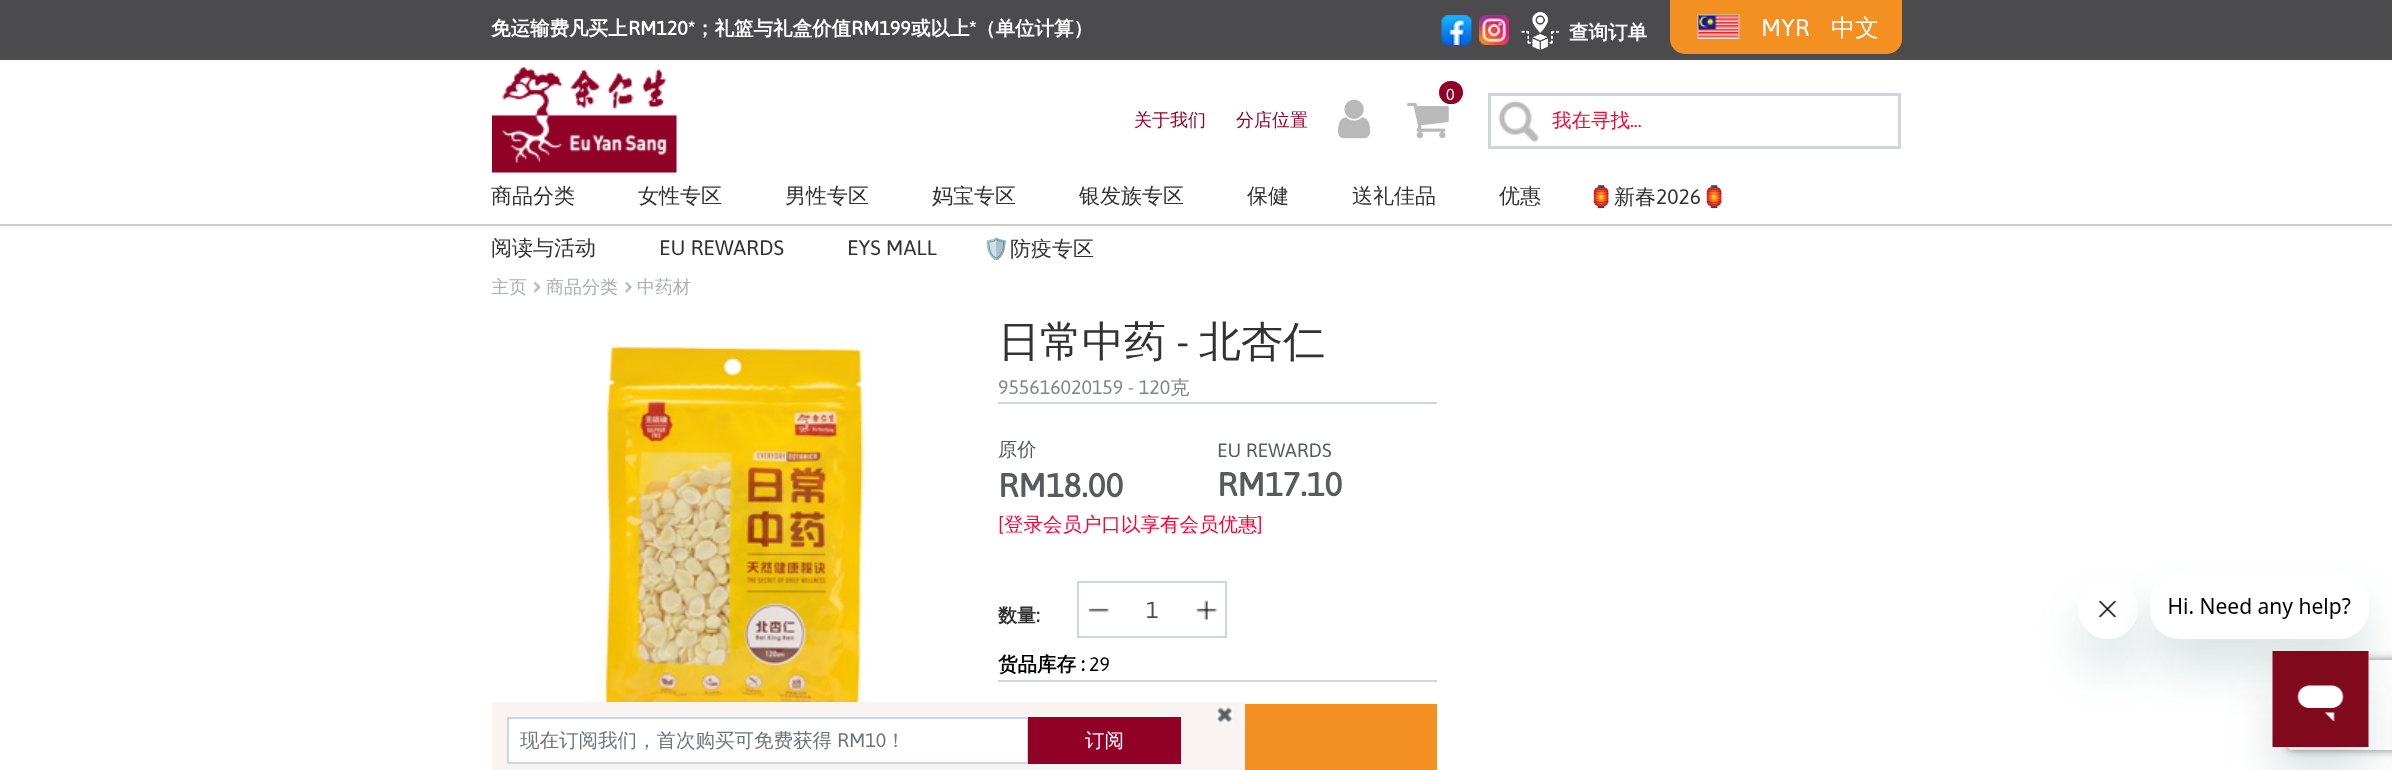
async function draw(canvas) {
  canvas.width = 2392
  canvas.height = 770
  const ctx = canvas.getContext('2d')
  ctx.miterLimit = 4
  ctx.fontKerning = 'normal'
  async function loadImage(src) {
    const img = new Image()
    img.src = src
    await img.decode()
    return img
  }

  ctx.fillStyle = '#fff'
  ctx.fillRect(0, 0, 2392, 770)
  ctx.fillStyle = '#4b4b4d'
  ctx.fillRect(0, 0, 2392, 60)
  ctx.font = 'bold 19.5px WenQuanYi Zen Hei'
  ctx.fillStyle = '#fff'
  ctx.fillText('免运输费凡买上', 491, 35)
  ctx.font = 'bold 19.5px Asap'
  ctx.fillText('RM120*', 628, 35)
  ctx.font = 'bold 19.5px WenQuanYi Zen Hei'
  ctx.fillText('；礼篮与礼盒价值', 695, 35)
  ctx.font = 'bold 19.5px Asap'
  ctx.fillText('RM199', 851, 35)
  ctx.font = 'bold 19.5px WenQuanYi Zen Hei'
  ctx.fillText('或以上', 911, 35)
  ctx.font = 'bold 19.5px Asap'
  ctx.fillText('*', 969, 35)
  ctx.font = 'bold 19.5px WenQuanYi Zen Hei'
  ctx.fillText('（单位计算）', 976, 35)
  ctx.drawImage(await loadImage('image0.png'), 1441, 15, 31, 30)
  ctx.drawImage(await loadImage('image1.png'), 1479, 15, 30, 30)
  ctx.drawImage(await loadImage('image2.png'), 1521, 12, 38, 38)
  ctx.fillText('查询订单', 1569, 39)
  ctx.fillStyle = '#f49022'
  ctx.beginPath()
  ctx.roundRect(1670, 0, 232, 54, [0, 0, 15, 15])
  ctx.fill()
  ctx.drawImage(await loadImage('image3.png'), 1698, 15, 41, 24)
  ctx.strokeStyle = '#cccccc82'
  ctx.lineWidth = 2
  ctx.strokeRect(1698, 15, 41, 23)
  ctx.font = '24px Asap'
  ctx.fillStyle = '#fff'
  ctx.fillText('MYR', 1761, 36)
  ctx.font = '500 24px WenQuanYi Zen Hei'
  ctx.fillText('中文', 1831, 36)
  ctx.drawImage(await loadImage('image4.png'), 492, 67, 185, 106)
  ctx.font = '500 18px WenQuanYi Zen Hei'
  ctx.fillStyle = '#900027'
  ctx.fillText('关于我们', 1134, 126)
  ctx.fillText('分店位置', 1236, 126)
  ctx.drawImage(await loadImage('image5.png'), 1407, 102, 42, 37)
  ctx.beginPath()
  ctx.roundRect(1441.5, 83.5, 19, 18, 9)
  ctx.fill()
  ctx.strokeStyle = '#900027'
  ctx.lineWidth = 5
  ctx.stroke()
  ctx.font = '16px Asap'
  ctx.fillStyle = '#fff'
  ctx.fillText('0', 1446, 100)
  ctx.drawImage(await loadImage('image6.png'), 1338, 99, 33, 40)
  ctx.strokeStyle = '#ced5de'
  ctx.lineWidth = 3
  ctx.strokeRect(1489.5, 94.5, 410, 53)
  ctx.drawImage(await loadImage('image7.png'), 1498, 100, 42, 43)
  ctx.font = '500 19.5px WenQuanYi Zen Hei'
  ctx.fillStyle = '#f03'
  ctx.fillText('我在寻找', 1552, 127)
  ctx.font = '19.5px Asap'
  ctx.fillText('...', 1630, 127)
  ctx.fillStyle = '#ccc'
  ctx.fillRect(0, 224, 2392, 2)
  ctx.font = '500 21px WenQuanYi Zen Hei'
  ctx.fillStyle = '#323232'
  ctx.fillText('商品分类', 491, 203)
  ctx.fillText('女性专区', 638, 203)
  ctx.fillText('男性专区', 785, 203)
  ctx.fillText('妈宝专区', 932, 203)
  ctx.fillText('银发族专区', 1079, 203)
  ctx.fillText('保健', 1247, 203)
  ctx.fillText('送礼佳品', 1352, 203)
  ctx.fillText('优惠', 1499, 203)
  ctx.font = '21px Noto Color Emoji'
  ctx.fillText('🏮', 1588, 204)
  ctx.font = '500 21px WenQuanYi Zen Hei'
  ctx.fillText('新春', 1614, 204)
  ctx.font = '21px Asap'
  ctx.fillText('2026', 1656, 204)
  ctx.font = '21px Noto Color Emoji'
  ctx.fillText('🏮', 1701, 204)
  ctx.font = '500 21px WenQuanYi Zen Hei'
  ctx.fillText('阅读与活动', 491, 255)
  ctx.font = '21px Asap'
  ctx.fillText('EU REWARDS', 659, 255)
  ctx.fillText('EYS MALL', 847, 255)
  ctx.font = '21px Noto Color Emoji'
  ctx.fillText('🛡️', 983, 256)
  ctx.font = '500 21px WenQuanYi Zen Hei'
  ctx.fillText('防疫专区', 1010, 256)
  ctx.font = '500 18px WenQuanYi Zen Hei'
  ctx.fillStyle = '#abb0b6'
  ctx.fillText('主页', 491, 293)
  ctx.drawImage(await loadImage('image8.png'), 533, 281, 8, 12)
  ctx.fillText('商品分类', 546, 293)
  ctx.drawImage(await loadImage('image9.png'), 625, 281, 7, 12)
  ctx.fillText('中药材', 637, 293)
  ctx.drawImage(await loadImage('image10.png'), 596, 340, 270, 362)
  ctx.font = '500 42px WenQuanYi Zen Hei'
  ctx.fillStyle = '#323232'
  ctx.fillText('日常中药', 998, 356)
  ctx.font = '42px Asap'
  ctx.fillText('-', 1176, 356)
  ctx.font = '500 42px WenQuanYi Zen Hei'
  ctx.fillText('北杏仁', 1199, 356)
  ctx.font = '19.5px Asap'
  ctx.fillStyle = '#82878d'
  ctx.fillText('955616020159 - 120', 998, 394)
  ctx.font = '500 19.5px WenQuanYi Zen Hei'
  ctx.fillText('克', 1170, 394)
  ctx.fillStyle = '#ced5de'
  ctx.fillRect(998, 402, 439, 2)
  ctx.font = '500 19.25px WenQuanYi Zen Hei'
  ctx.fillStyle = '#585b5e'
  ctx.fillText('原价', 998, 456)
  ctx.font = 'bold 33px Asap'
  ctx.fillText('RM18.00', 998, 497)
  ctx.font = '19.25px Asap'
  ctx.fillText('EU REWARDS', 1217, 457)
  ctx.font = 'bold 33px Asap'
  ctx.fillText('RM17.10', 1217, 496)
  ctx.font = '19.5px Asap'
  ctx.fillStyle = '#f03'
  ctx.fillText('[', 998, 531)
  ctx.font = '500 19.5px WenQuanYi Zen Hei'
  ctx.fillText('登录会员户口以享有会员优惠', 1004, 531)
  ctx.font = '19.5px Asap'
  ctx.fillText(']', 1257, 531)
  ctx.font = 'bold 19px WenQuanYi Zen Hei'
  ctx.fillStyle = '#323232'
  ctx.fillText('数量', 998, 622)
  ctx.font = 'bold 19px Asap'
  ctx.fillText(':', 1036, 622)
  ctx.lineWidth = 2
  ctx.strokeRect(1078, 582, 148, 55)
  ctx.drawImage(await loadImage('image11.png'), 1088, 608, 21, 5)
  ctx.font = '23px Asap'
  ctx.fillStyle = '#4d4d4d'
  ctx.fillText('1', 1146, 618)
  ctx.drawImage(await loadImage('image12.png'), 1196, 600, 21, 20)
  ctx.font = 'bold 19.5px WenQuanYi Zen Hei'
  ctx.fillStyle = '#000'
  ctx.fillText('货品库存', 998, 671)
  ctx.font = 'bold 19.5px Asap'
  ctx.fillText(':', 1081, 671)
  ctx.font = '19.5px Asap'
  ctx.fillText('29', 1089, 671)
  ctx.fillStyle = '#ced5de'
  ctx.fillRect(998, 680, 439, 2)
  ctx.fillStyle = '#f49022'
  ctx.fillRect(1245, 704, 192, 66)
  ctx.fillStyle = '#f9f4f1'
  ctx.fillRect(492, 702, 753, 68)
  ctx.drawImage(await loadImage('image13.png'), 1216, 706, 17, 17)
  ctx.fillStyle = '#fff'
  ctx.beginPath()
  ctx.rect(508, 718, 520, 45)
  ctx.fill()
  ctx.stroke()
  ctx.font = '500 19.5px WenQuanYi Zen Hei'
  ctx.fillStyle = '#6c757d'
  ctx.fillText('现在订阅我们，首次购买可免费获得', 520, 747)
  ctx.font = '19.5px Asap'
  ctx.fillText('RM10', 837, 747)
  ctx.font = '500 19.5px WenQuanYi Zen Hei'
  ctx.fillText('！', 886, 747)
  ctx.fillStyle = '#900027'
  ctx.fillRect(1028, 717, 153, 47)
  ctx.fillStyle = '#fff'
  ctx.fillText('订阅', 1085, 747)
  ctx.save()
  ctx.beginPath()
  ctx.moveTo(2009, 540)
  ctx.lineTo(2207, 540)
  ctx.lineTo(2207, 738)
  ctx.lineTo(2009, 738)
  ctx.closePath()
  ctx.moveTo(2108, 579)
  ctx.bezierCurveTo(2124.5, 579, 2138, 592.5, 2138, 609)
  ctx.bezierCurveTo(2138, 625.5, 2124.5, 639, 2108, 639)
  ctx.bezierCurveTo(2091.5, 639, 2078, 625.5, 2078, 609)
  ctx.bezierCurveTo(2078, 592.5, 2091.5, 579, 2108, 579)
  ctx.closePath()
  ctx.clip('evenodd')
  ctx.fillStyle = '#17494d26'
  ctx.filter = 'blur(22.5px)'
  ctx.beginPath()
  ctx.roundRect(2078, 609, 60, 60, 30)
  ctx.fill()
  ctx.filter = 'none'
  ctx.restore()
  ctx.drawImage(await loadImage('image15.png'), 2098, 600, 19, 18)
  ctx.save()
  ctx.beginPath()
  ctx.moveTo(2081, 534)
  ctx.lineTo(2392, 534)
  ctx.lineTo(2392, 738)
  ctx.lineTo(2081, 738)
  ctx.closePath()
  ctx.moveTo(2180, 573)
  ctx.lineTo(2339, 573)
  ctx.bezierCurveTo(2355.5, 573, 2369, 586.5, 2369, 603)
  ctx.lineTo(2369, 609)
  ctx.bezierCurveTo(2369, 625.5, 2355.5, 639, 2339, 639)
  ctx.lineTo(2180, 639)
  ctx.bezierCurveTo(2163.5, 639, 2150, 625.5, 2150, 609)
  ctx.lineTo(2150, 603)
  ctx.bezierCurveTo(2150, 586.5, 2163.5, 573, 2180, 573)
  ctx.closePath()
  ctx.clip('evenodd')
  ctx.fillStyle = '#17494d26'
  ctx.filter = 'blur(22.5px)'
  ctx.beginPath()
  ctx.roundRect(2150, 603, 219, 66, 30)
  ctx.fill()
  ctx.filter = 'none'
  ctx.restore()
  ctx.drawImage(await loadImage('image14.png'), 2150, 598, 201, 36)
  ctx.fillStyle = '#17494d26'
  ctx.filter = 'blur(22.5px)'
  ctx.beginPath()
  ctx.rect(2273, 681, 96, 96)
  ctx.fill()
  ctx.filter = 'none'
  ctx.save()
  ctx.beginPath()
  ctx.moveTo(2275, 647)
  ctx.lineTo(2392, 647)
  ctx.lineTo(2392, 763)
  ctx.lineTo(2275, 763)
  ctx.closePath()
  ctx.moveTo(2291, 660)
  ctx.lineTo(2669, 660)
  ctx.bezierCurveTo(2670.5, 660, 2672, 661.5, 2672, 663)
  ctx.lineTo(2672, 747)
  ctx.bezierCurveTo(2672, 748.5, 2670.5, 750, 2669, 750)
  ctx.lineTo(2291, 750)
  ctx.bezierCurveTo(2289.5, 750, 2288, 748.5, 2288, 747)
  ctx.lineTo(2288, 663)
  ctx.bezierCurveTo(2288, 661.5, 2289.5, 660, 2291, 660)
  ctx.closePath()
  ctx.clip('evenodd')
  ctx.fillStyle = '#808080'
  ctx.filter = 'blur(4px)'
  ctx.beginPath()
  ctx.roundRect(2288, 660, 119, 90, 3)
  ctx.fill()
  ctx.filter = 'none'
  ctx.restore()
  ctx.drawImage(await loadImage('image16.png'), 2272, 651, 97, 96)
}

draw(document.querySelector('canvas'))
